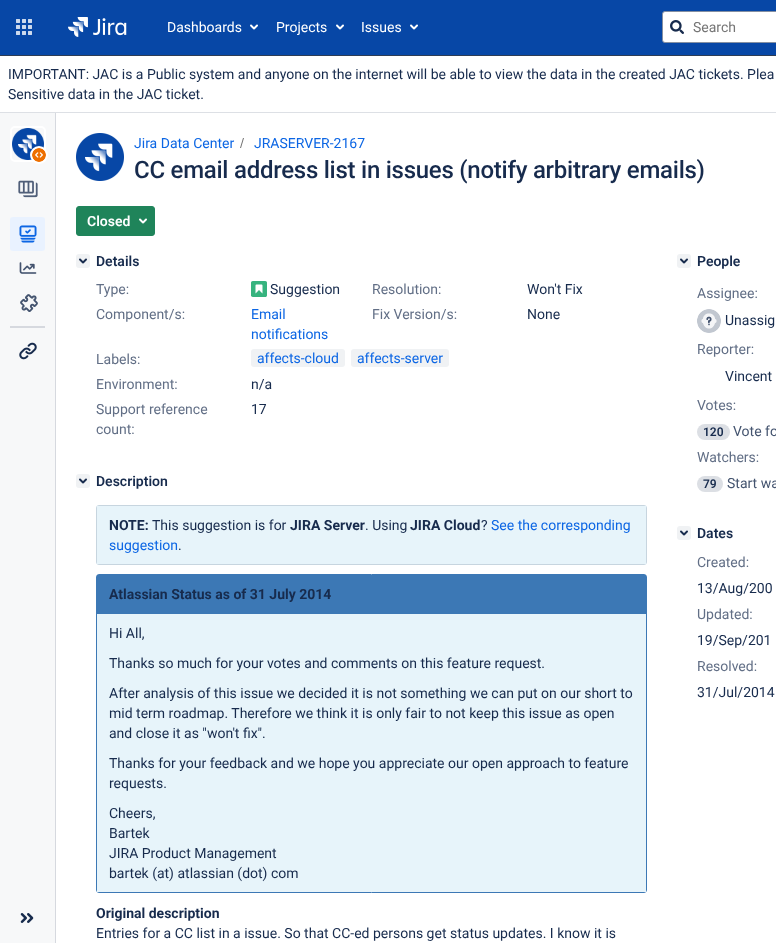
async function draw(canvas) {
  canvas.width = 776
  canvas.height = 943
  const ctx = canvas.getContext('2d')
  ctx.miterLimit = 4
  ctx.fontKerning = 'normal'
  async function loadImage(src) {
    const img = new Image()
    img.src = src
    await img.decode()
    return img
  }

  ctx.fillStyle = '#fff'
  ctx.fillRect(0, 0, 776, 943)
  ctx.fillStyle = '#0747a6'
  ctx.fillRect(0, 0, 776, 55)
  ctx.fillStyle = '#2e3d54'
  ctx.fillRect(0, 55, 776, 1)
  ctx.drawImage(await loadImage('image0.png'), 16, 19, 16, 16)
  ctx.drawImage(await loadImage('image1.png'), 68, 17, 59, 20)
  ctx.font = '14px Roboto'
  ctx.fillStyle = '#fff'
  ctx.fillText('Dashboards', 167, 32)
  ctx.drawImage(await loadImage('image2.png'), 250, 24, 8, 6)
  ctx.fillText('Projects', 276, 32)
  ctx.drawImage(await loadImage('image2.png'), 336, 24, 8, 6)
  ctx.fillText('Issues', 361, 32)
  ctx.drawImage(await loadImage('image2.png'), 410, 24, 8, 6)
  ctx.beginPath()
  ctx.roundRect(662.5, 11.5, 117, 31, 2.5)
  ctx.fill()
  ctx.strokeStyle = '#8590a2'
  ctx.stroke()
  ctx.drawImage(await loadImage('image3.png'), 670, 20, 14, 14)
  ctx.fillStyle = '#757575'
  ctx.fillText('Search', 693, 32)
  ctx.fillStyle = '#dde0e5'
  ctx.fillRect(0, 112, 776, 1)
  ctx.fillStyle = '#172b4d'
  ctx.fillText('IMPORTANT: JAC is a Public system and anyone on the internet will be able to view the data in the created JAC tickets. Plea', 8, 79)
  ctx.fillText('Sensitive data in the JAC ticket.', 8, 99)
  ctx.fillStyle = '#f7f8f9'
  ctx.fillRect(0, 113, 55, 830)
  ctx.fillStyle = '#d6d9df'
  ctx.fillRect(55, 113, 1, 830)
  ctx.beginPath()
  ctx.roundRect(11, 127, 34, 34, 4)
  ctx.strokeStyle = '#fff'
  ctx.lineWidth = 2
  ctx.stroke()
  ctx.drawImage(await loadImage('image4.png'), 12, 128, 32, 32)
  ctx.fillStyle = '#fff'
  ctx.beginPath()
  ctx.arc(39, 155, 9, 0, 2 * Math.PI)
  ctx.fill()
  ctx.drawImage(await loadImage('image5.png'), 32, 148, 14, 14)
  ctx.drawImage(await loadImage('image6.png'), 18, 180, 20, 18)
  ctx.fillStyle = '#e9f2ff'
  ctx.beginPath()
  ctx.roundRect(10, 217, 35, 34, 3)
  ctx.fill()
  ctx.drawImage(await loadImage('image7.png'), 19, 225, 18, 18)
  ctx.drawImage(await loadImage('image8.png'), 19, 262, 18, 12)
  ctx.drawImage(await loadImage('image9.png'), 20, 294, 18, 18)
  ctx.fillStyle = '#d6d9df'
  ctx.fillRect(10, 326, 35, 2)
  ctx.drawImage(await loadImage('image10.png'), 19, 342, 18, 18)
  ctx.drawImage(await loadImage('image11.png'), 20, 913, 14, 10)
  ctx.drawImage(await loadImage('image12.png'), 76, 133, 48, 48)
  ctx.fillStyle = '#0c66e4'
  ctx.fillText('Jira Data Center', 134, 148)
  ctx.fillStyle = '#707070'
  ctx.beginPath()
  ctx.moveTo(241, 148)
  ctx.lineTo(244, 138)
  ctx.lineTo(243, 138)
  ctx.lineTo(240, 148)
  ctx.closePath()
  ctx.fill()
  ctx.fillStyle = '#0c66e4'
  ctx.fillText('JRASERVER-2167', 254, 148)
  ctx.letterSpacing = '-0.25px'
  ctx.font = '500 24px Roboto'
  ctx.fillStyle = '#172b4d'
  ctx.fillText('CC email address list in issues (notify arbitrary emails)', 134, 178)
  ctx.fillStyle = '#1f845a'
  ctx.beginPath()
  ctx.roundRect(76.5, 206.5, 78, 29, 2.5)
  ctx.fill()
  ctx.strokeStyle = '#1f845a'
  ctx.lineWidth = 1
  ctx.stroke()
  ctx.letterSpacing = '0px'
  ctx.font = '600 14px Roboto'
  ctx.fillStyle = '#fff'
  ctx.fillText('Closed', 87, 226)
  ctx.drawImage(await loadImage('image13.png'), 139, 218, 8, 6)
  ctx.fillStyle = '#f0f2f4'
  ctx.beginPath()
  ctx.roundRect(76, 254, 14, 14, 3)
  ctx.fill()
  ctx.drawImage(await loadImage('image14.png'), 79, 258, 8, 6)
  ctx.fillStyle = '#172b4d'
  ctx.fillText('Details', 96, 266)
  ctx.font = '14px Roboto'
  ctx.fillStyle = '#626f86'
  ctx.fillText('Type:', 96, 294)
  ctx.drawImage(await loadImage('image15.png'), 251, 281, 16, 16)
  ctx.fillStyle = '#172b4d'
  ctx.fillText('Suggestion', 270, 294)
  ctx.fillStyle = '#626f86'
  ctx.fillText('Resolution:', 372, 294)
  ctx.fillStyle = '#172b4d'
  ctx.fillText('Won\'t Fix', 527, 294)
  ctx.fillStyle = '#626f86'
  ctx.fillText('Component/s:', 96, 319)
  ctx.fillStyle = '#0c66e4'
  ctx.fillText('Email', 251, 319)
  ctx.fillText('notifications', 251, 339)
  ctx.fillStyle = '#626f86'
  ctx.fillText('Fix Version/s:', 372, 319)
  ctx.fillStyle = '#172b4d'
  ctx.fillText('None', 527, 319)
  ctx.fillStyle = '#626f86'
  ctx.fillText('Labels:', 96, 364)
  ctx.fillStyle = '#f0f2f4'
  ctx.beginPath()
  ctx.roundRect(251, 349, 94, 18, 3)
  ctx.fill()
  ctx.fillStyle = '#0c66e4'
  ctx.fillText('affects-cloud', 257, 363)
  ctx.fillStyle = '#f0f2f4'
  ctx.beginPath()
  ctx.roundRect(351, 349, 98, 18, 3)
  ctx.fill()
  ctx.fillStyle = '#0c66e4'
  ctx.fillText('affects-server', 357, 363)
  ctx.fillStyle = '#626f86'
  ctx.fillText('Environment:', 96, 389)
  ctx.fillStyle = '#172b4d'
  ctx.fillText('n/a', 251, 389)
  ctx.fillStyle = '#626f86'
  ctx.fillText('Support reference', 96, 414)
  ctx.fillText('count:', 96, 434)
  ctx.fillStyle = '#172b4d'
  ctx.fillText('17', 251, 414)
  ctx.fillStyle = '#f0f2f4'
  ctx.beginPath()
  ctx.roundRect(76, 474, 14, 14, 3)
  ctx.fill()
  ctx.drawImage(await loadImage('image14.png'), 79, 478, 8, 6)
  ctx.font = '600 14px Roboto'
  ctx.fillStyle = '#172b4d'
  ctx.fillText('Description', 96, 486)
  ctx.fillStyle = '#e7f4fa'
  ctx.beginPath()
  ctx.roundRect(96, 505, 551, 60, 3)
  ctx.fill()
  ctx.beginPath()
  ctx.roundRect(96.5, 505.5, 550, 59, 2.5)
  ctx.strokeStyle = '#091e4224'
  ctx.stroke()
  ctx.fillRect(97, 506, 549, 58)
  ctx.font = 'bold 14px Roboto'
  ctx.fillStyle = '#172b4d'
  ctx.fillText('NOTE:', 109, 530)
  ctx.font = '14px Roboto'
  ctx.fillText('This suggestion is for', 152, 530)
  ctx.font = 'bold 14px Roboto'
  ctx.fillText('JIRA Server', 290, 530)
  ctx.font = '14px Roboto'
  ctx.fillText('. Using', 365, 530)
  ctx.font = 'bold 14px Roboto'
  ctx.fillText('JIRA Cloud', 410, 530)
  ctx.font = '14px Roboto'
  ctx.fillText('?', 481, 530)
  ctx.fillStyle = '#0c66e4'
  ctx.fillText('See the corresponding', 491, 530)
  ctx.fillText('suggestion', 109, 550)
  ctx.fillStyle = '#172b4d'
  ctx.fillText('.', 178, 550)
  ctx.beginPath()
  ctx.roundRect(96.5, 574.5, 550, 318, 2.5)
  ctx.strokeStyle = '#3c78b5'
  ctx.stroke()
  ctx.fillStyle = '#3c78b5'
  ctx.fillRect(97, 575, 549, 39)
  ctx.font = 'bold 14px Roboto'
  ctx.fillStyle = '#172b4d'
  ctx.fillText('Atlassian Status as of 31 July 2014', 109, 599)
  ctx.fillStyle = '#e7f4fa'
  ctx.fillRect(97, 614, 549, 278)
  ctx.font = '14px Roboto'
  ctx.fillStyle = '#172b4d'
  ctx.fillText('Hi All,', 109, 638)
  ctx.fillText('Thanks so much for your votes and comments on this feature request.', 109, 668)
  ctx.fillText('After analysis of this issue we decided it is not something we can put on our short to', 109, 698)
  ctx.fillText('mid term roadmap. Therefore we think it is only fair to not keep this issue as open', 109, 718)
  ctx.fillText('and close it as "won\'t fix".', 109, 738)
  ctx.fillText('Thanks for your feedback and we hope you appreciate our open approach to feature', 109, 768)
  ctx.fillText('requests.', 109, 788)
  ctx.fillText('Cheers,', 109, 818)
  ctx.fillText('Bartek', 109, 838)
  ctx.fillText('JIRA Product Management', 109, 858)
  ctx.fillText('bartek (at) atlassian (dot) com', 109, 878)
  ctx.font = 'bold 14px Roboto'
  ctx.fillText('Original description', 96, 918)
  ctx.font = '14px Roboto'
  ctx.fillText('Entries for a CC list in a issue. So that CC-ed persons get status updates. I know it is', 96, 938)
  ctx.fillStyle = '#f0f2f4'
  ctx.beginPath()
  ctx.roundRect(677, 254, 14, 14, 3)
  ctx.fill()
  ctx.drawImage(await loadImage('image14.png'), 680, 258, 8, 6)
  ctx.font = '600 14px Roboto'
  ctx.fillStyle = '#172b4d'
  ctx.fillText('People', 697, 266)
  ctx.font = '14px Roboto'
  ctx.fillStyle = '#626f86'
  ctx.fillText('Assignee:', 697, 298)
  ctx.drawImage(await loadImage('image16.png'), 697, 309, 24, 24)
  ctx.fillStyle = '#172b4d'
  ctx.fillText('Unassig', 725, 325)
  ctx.fillStyle = '#626f86'
  ctx.fillText('Reporter:', 697, 354)
  ctx.fillStyle = '#172b4d'
  ctx.fillText('Vincent', 725, 381)
  ctx.fillStyle = '#626f86'
  ctx.fillText('Votes:', 697, 410)
  ctx.fillStyle = '#dcdfe4'
  ctx.beginPath()
  ctx.roundRect(697, 424, 33, 16, 8)
  ctx.fill()
  ctx.font = '600 12px Roboto'
  ctx.fillStyle = '#172b4d'
  ctx.fillText('120', 703, 436)
  ctx.font = '14px Roboto'
  ctx.fillStyle = '#44546f'
  ctx.fillText('Vote fo', 733, 436)
  ctx.fillStyle = '#626f86'
  ctx.fillText('Watchers:', 697, 462)
  ctx.fillStyle = '#dcdfe4'
  ctx.beginPath()
  ctx.roundRect(697, 476, 26, 16, 8)
  ctx.fill()
  ctx.font = '600 12px Roboto'
  ctx.fillStyle = '#172b4d'
  ctx.fillText('79', 703, 488)
  ctx.font = '14px Roboto'
  ctx.fillStyle = '#44546f'
  ctx.fillText('Start wa', 727, 488)
  ctx.fillStyle = '#f0f2f4'
  ctx.beginPath()
  ctx.roundRect(677, 526, 14, 14, 3)
  ctx.fill()
  ctx.drawImage(await loadImage('image14.png'), 680, 530, 8, 6)
  ctx.font = '600 14px Roboto'
  ctx.fillStyle = '#172b4d'
  ctx.fillText('Dates', 697, 538)
  ctx.font = '14px Roboto'
  ctx.fillStyle = '#626f86'
  ctx.fillText('Created:', 697, 567)
  ctx.fillStyle = '#172b4d'
  ctx.fillText('13/Aug/200', 697, 593)
  ctx.fillStyle = '#626f86'
  ctx.fillText('Updated:', 697, 619)
  ctx.fillStyle = '#172b4d'
  ctx.fillText('19/Sep/201', 697, 645)
  ctx.fillStyle = '#626f86'
  ctx.fillText('Resolved:', 697, 671)
  ctx.fillStyle = '#172b4d'
  ctx.fillText('31/Jul/2014', 697, 697)
}

draw(document.querySelector('canvas'))
